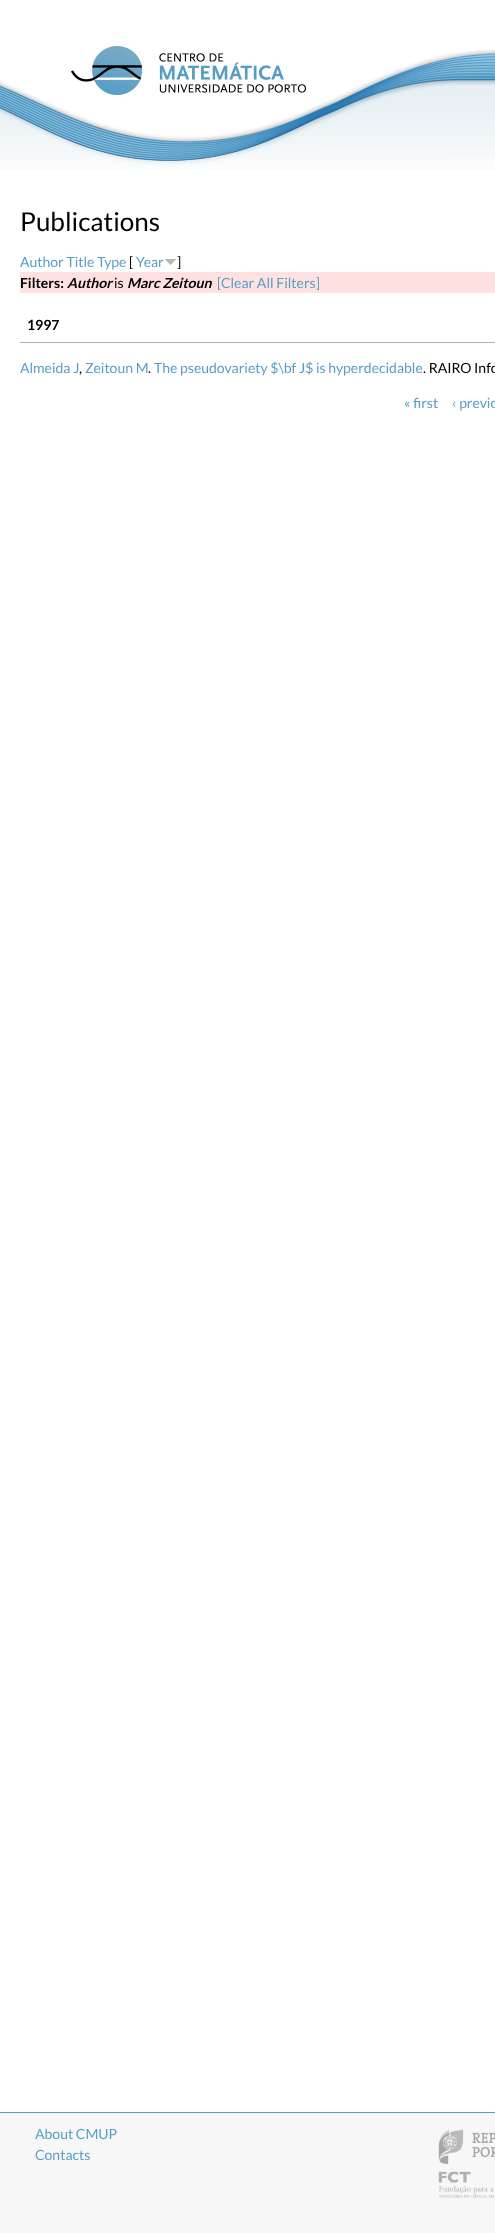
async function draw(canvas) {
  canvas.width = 495
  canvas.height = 2233
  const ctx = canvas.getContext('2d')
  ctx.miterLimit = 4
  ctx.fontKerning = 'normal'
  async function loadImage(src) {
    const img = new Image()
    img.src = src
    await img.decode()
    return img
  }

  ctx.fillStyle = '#fff'
  ctx.fillRect(0, 0, 495, 2233)
  ctx.drawImage(await loadImage('image0.png'), 0, 165, 495, 5)
  ctx.drawImage(await loadImage('image2.png'), 0, 49, 495, 116)
  ctx.drawImage(await loadImage('image1.png'), 71, 46, 235, 49)
  ctx.font = '26px Lato'
  ctx.fillStyle = '#000'
  ctx.fillText('Publications', 20, 231)
  ctx.font = '14px Lato'
  ctx.fillStyle = '#559fc7'
  ctx.fillText('Author Title Type', 20, 267)
  ctx.fillStyle = '#000'
  ctx.fillText('[', 129, 267)
  ctx.fillStyle = '#559fc7'
  ctx.fillText('Year', 136, 267)
  ctx.drawImage(await loadImage('image3.png'), 165, 259, 11, 6)
  ctx.fillStyle = '#000'
  ctx.fillText(']', 177, 267)
  ctx.fillStyle = '#ffe1e1'
  ctx.fillRect(20, 272, 475, 21)
  ctx.font = 'bold 14px Lato'
  ctx.fillStyle = '#000'
  ctx.fillText('Filters:', 20, 288)
  ctx.font = 'italic bold 14px Lato'
  ctx.fillText('Author', 67, 288)
  ctx.font = '14px Lato'
  ctx.fillText('is', 114, 288)
  ctx.font = 'italic bold 14px Lato'
  ctx.fillText('Marc Zeitoun', 127, 288)
  ctx.font = '14px Lato'
  ctx.fillStyle = '#559fc7'
  ctx.fillText('[Clear All Filters]', 217, 288)
  ctx.fillStyle = '#b3b3b3'
  ctx.fillRect(20, 342, 475, 1)
  ctx.font = 'bold 14px Lato'
  ctx.fillStyle = '#000'
  ctx.fillText('1997', 27, 330)
  ctx.font = '14px Lato'
  ctx.fillStyle = '#559fc7'
  ctx.fillText('Almeida J', 20, 373)
  ctx.fillStyle = '#000'
  ctx.fillText(',', 79, 373)
  ctx.fillStyle = '#559fc7'
  ctx.fillText('Zeitoun M', 85, 373)
  ctx.fillStyle = '#000'
  ctx.fillText('.', 148, 373)
  ctx.fillStyle = '#559fc7'
  ctx.fillText('The pseudovariety $\\bf J$ is hyperdecidable', 154, 373)
  ctx.fillStyle = '#000'
  ctx.fillText('. RAIRO Info', 423, 373)
  ctx.fillStyle = '#559fc7'
  ctx.fillText('« first', 404, 408)
  ctx.fillText('‹ previo', 452, 408)
  ctx.fillStyle = '#f7f7f7'
  ctx.fillRect(0, 2113, 495, 120)
  ctx.fillStyle = '#559fc7'
  ctx.fillRect(0, 2112, 495, 1)
  ctx.fillText('About CMUP', 35, 2139)
  ctx.fillText('Contacts', 35, 2160)
  ctx.drawImage(await loadImage('image4.png'), 438, 2129, 57, 69)
}

draw(document.querySelector('canvas'))
